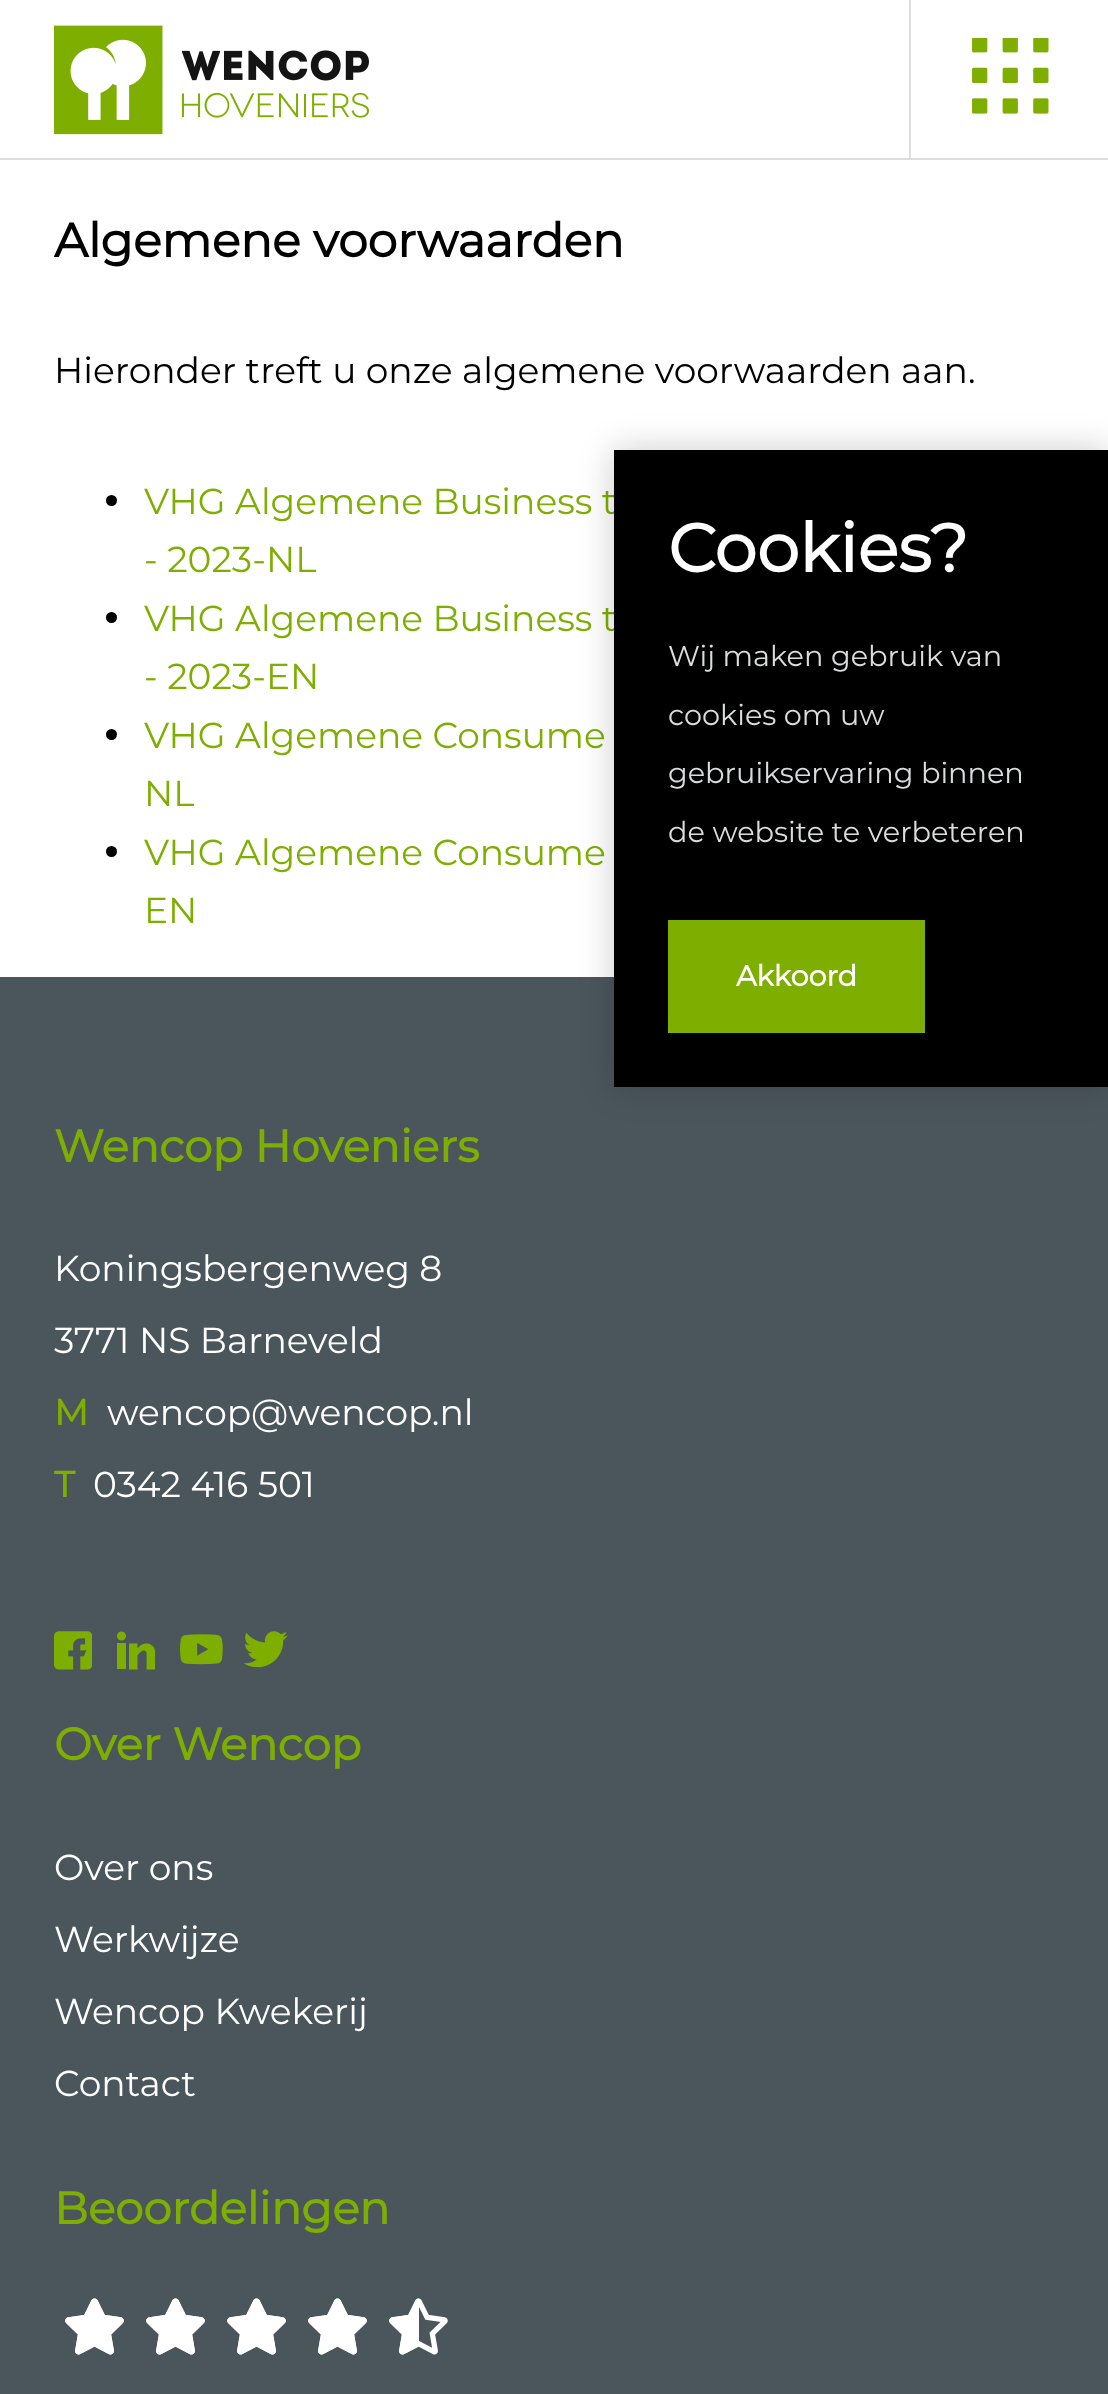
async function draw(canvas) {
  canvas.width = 1108
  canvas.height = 2394
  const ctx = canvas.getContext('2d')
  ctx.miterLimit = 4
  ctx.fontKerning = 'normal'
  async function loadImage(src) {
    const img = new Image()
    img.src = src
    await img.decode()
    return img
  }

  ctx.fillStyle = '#fff'
  ctx.fillRect(0, 0, 1108, 2394)
  ctx.fillStyle = '#dadcde'
  ctx.fillRect(0, 158, 1108, 2)
  ctx.drawImage(await loadImage('image0.png'), 54, 25, 315, 110)
  ctx.fillRect(909, 0, 2, 158)
  ctx.drawImage(await loadImage('image1.png'), 972, 38, 77, 76)
  ctx.font = 'bold 47.25px Montserrat'
  ctx.fillStyle = '#000'
  ctx.fillText('Algemene voorwaarden', 54, 257)
  ctx.font = '100 36px Montserrat'
  ctx.fillText('Hieronder treft u onze algemene voorwaarden aan.', 54, 383)
  ctx.beginPath()
  ctx.arc(111.5, 500.5, 5.5, 0, 2 * Math.PI)
  ctx.fill()
  ctx.fillStyle = '#7eaf00'
  ctx.fillText('VHG Algemene Business t', 144, 514)
  ctx.fillText('- 2023-NL', 144, 572)
  ctx.fillStyle = '#000'
  ctx.beginPath()
  ctx.arc(111.5, 617.5, 5.5, 0, 2 * Math.PI)
  ctx.fill()
  ctx.fillStyle = '#7eaf00'
  ctx.fillText('VHG Algemene Business t', 144, 631)
  ctx.fillText('- 2023-EN', 144, 689)
  ctx.fillStyle = '#000'
  ctx.beginPath()
  ctx.arc(111.5, 734.5, 5.5, 0, 2 * Math.PI)
  ctx.fill()
  ctx.fillStyle = '#7eaf00'
  ctx.fillText('VHG Algemene Consume', 144, 748)
  ctx.fillText('NL', 144, 806)
  ctx.fillStyle = '#000'
  ctx.beginPath()
  ctx.arc(111.5, 851.5, 5.5, 0, 2 * Math.PI)
  ctx.fill()
  ctx.fillStyle = '#7eaf00'
  ctx.fillText('VHG Algemene Consume', 144, 865)
  ctx.fillText('EN', 144, 923)
  ctx.fillStyle = '#4b565c'
  ctx.fillRect(0, 977, 1108, 1417)
  ctx.fillStyle = '#00000033'
  ctx.filter = 'blur(17px)'
  ctx.beginPath()
  ctx.rect(614, 450, 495, 637)
  ctx.fill()
  ctx.filter = 'none'
  ctx.fillStyle = '#000'
  ctx.fillRect(614, 450, 494, 637)
  ctx.font = 'bold 67.5px Montserrat'
  ctx.fillStyle = '#fff'
  ctx.fillText('Cookies?', 668, 572)
  ctx.font = '100 28.75px Montserrat'
  ctx.fillStyle = '#dadcde'
  ctx.fillText('Wij maken gebruik van', 668, 666)
  ctx.fillText('cookies om uw', 668, 725)
  ctx.fillText('gebruikservaring binnen', 668, 783)
  ctx.fillText('de website te verbeteren', 668, 842)
  ctx.fillStyle = '#7eaf00'
  ctx.fillRect(668, 920, 257, 113)
  ctx.font = 'bold 28.75px Montserrat'
  ctx.fillStyle = '#fff'
  ctx.fillText('Akkoord', 736, 986)
  ctx.font = 'bold 45px Montserrat'
  ctx.fillStyle = '#7eaf00'
  ctx.fillText('Wencop Hoveniers', 54, 1162)
  ctx.font = '100 36px Montserrat'
  ctx.fillStyle = '#fff'
  ctx.fillText('Koningsbergenweg 8', 54, 1281)
  ctx.fillText('3771 NS Barneveld', 54, 1353)
  ctx.font = 'bold 36px Montserrat'
  ctx.fillStyle = '#7eaf00'
  ctx.fillText('M', 54, 1425)
  ctx.font = '100 36px Montserrat'
  ctx.fillStyle = '#fff'
  ctx.fillText('wencop@wencop.nl', 107, 1425)
  ctx.font = 'bold 36px Montserrat'
  ctx.fillStyle = '#7eaf00'
  ctx.fillText('T', 54, 1497)
  ctx.font = '100 36px Montserrat'
  ctx.fillStyle = '#fff'
  ctx.fillText('0342 416 501', 93, 1497)
  ctx.drawImage(await loadImage('image2.png'), 54, 1631, 38, 39)
  ctx.drawImage(await loadImage('image3.png'), 117, 1631, 38, 39)
  ctx.drawImage(await loadImage('image4.png'), 180, 1634, 43, 31)
  ctx.drawImage(await loadImage('image5.png'), 243, 1631, 45, 36)
  ctx.font = 'bold 45px Montserrat'
  ctx.fillStyle = '#7eaf00'
  ctx.fillText('Over Wencop', 54, 1760)
  ctx.font = '100 36px Montserrat'
  ctx.fillStyle = '#fff'
  ctx.fillText('Over ons', 54, 1880)
  ctx.fillText('Werkwijze', 54, 1952)
  ctx.fillText('Wencop Kwekerij', 54, 2024)
  ctx.fillText('Contact', 54, 2096)
  ctx.font = 'bold 45px Montserrat'
  ctx.fillStyle = '#7eaf00'
  ctx.fillText('Beoordelingen', 54, 2224)
  ctx.drawImage(await loadImage('image6.png'), 65, 2298, 59, 57)
  ctx.drawImage(await loadImage('image6.png'), 146, 2298, 59, 57)
  ctx.drawImage(await loadImage('image6.png'), 227, 2298, 59, 57)
  ctx.drawImage(await loadImage('image6.png'), 308, 2298, 59, 57)
  ctx.drawImage(await loadImage('image6.png'), 389, 2298, 59, 57)
  ctx.drawImage(await loadImage('image7.png'), 65, 2298, 59, 57)
  ctx.drawImage(await loadImage('image7.png'), 146, 2298, 59, 57)
  ctx.drawImage(await loadImage('image7.png'), 227, 2298, 59, 57)
  ctx.drawImage(await loadImage('image7.png'), 308, 2298, 59, 57)
  ctx.drawImage(await loadImage('image8.png'), 389, 2298, 30, 57)
}

draw(document.querySelector('canvas'))
